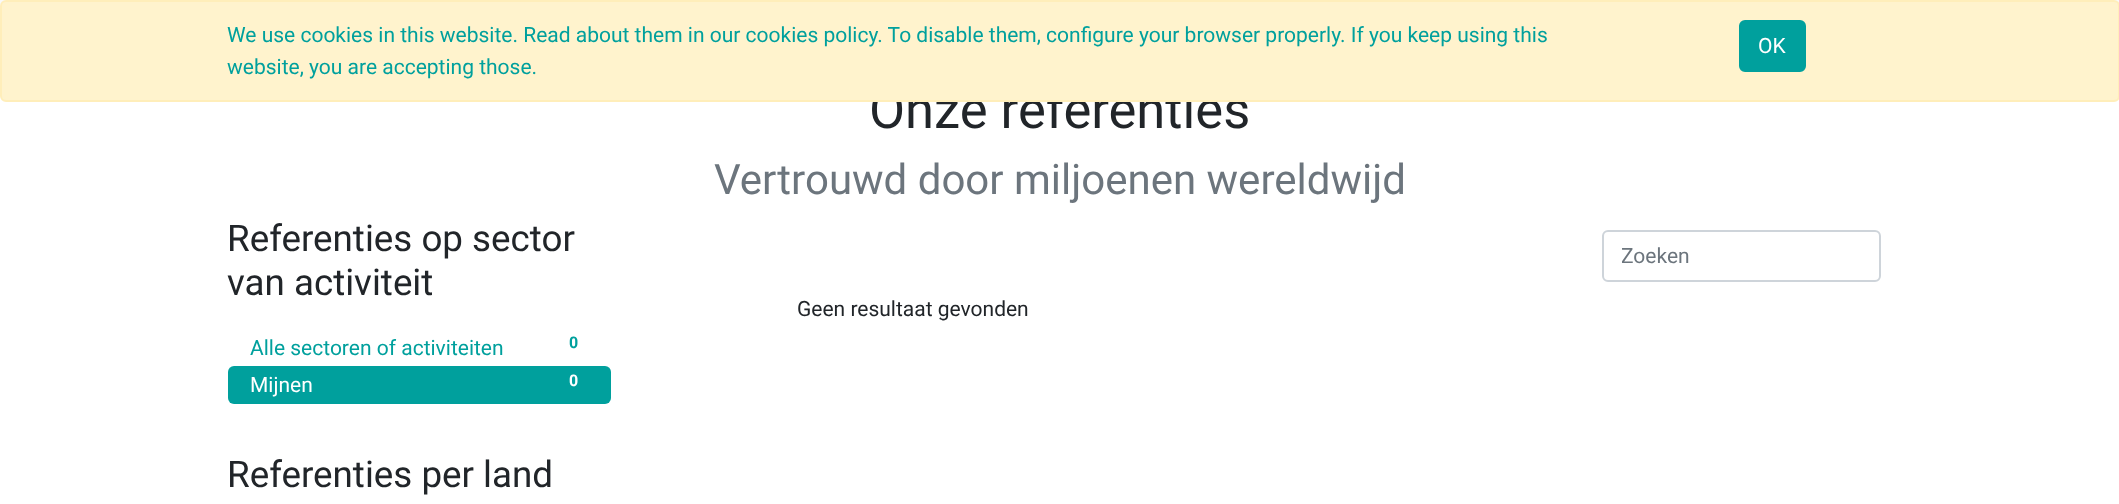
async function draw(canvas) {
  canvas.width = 2119
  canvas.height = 504
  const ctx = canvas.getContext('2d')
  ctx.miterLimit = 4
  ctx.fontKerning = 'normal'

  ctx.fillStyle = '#fff'
  ctx.fillRect(0, 0, 2119, 504)
  ctx.fillStyle = '#f9f9f9'
  ctx.fillRect(0, 0, 2119, 6)
  ctx.font = '52.5px Roboto'
  ctx.fillStyle = '#212529'
  ctx.fillText('Onze referenties', 869, 128)
  ctx.fillStyle = '#fff3cd'
  ctx.beginPath()
  ctx.roundRect(1, 1, 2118, 100, 5)
  ctx.fill()
  ctx.strokeStyle = '#ffeeba'
  ctx.lineWidth = 2
  ctx.stroke()
  ctx.font = '21px Roboto'
  ctx.fillStyle = '#00a09d'
  ctx.fillText('We use cookies in this website. Read about them in our cookies policy. To disable them, configure your browser properly. If you keep using this', 227, 42)
  ctx.fillText('website, you are accepting those.', 227, 74)
  ctx.beginPath()
  ctx.roundRect(1740, 21, 65, 50, 5)
  ctx.fill()
  ctx.strokeStyle = '#00a09d'
  ctx.stroke()
  ctx.fillStyle = '#fff'
  ctx.fillText('OK', 1758, 53)
  ctx.font = '42px Roboto'
  ctx.fillStyle = '#6c757d'
  ctx.fillText('Vertrouwd door miljoenen wereldwijd', 714, 194)
  ctx.font = '36.75px Roboto'
  ctx.fillStyle = '#212529'
  ctx.fillText('Referenties op sector', 227, 251)
  ctx.fillText('van activiteit', 227, 295)
  ctx.font = '21px Roboto'
  ctx.fillStyle = '#00a09d'
  ctx.fillText('Alle sectoren of activiteiten', 250, 355)
  ctx.font = 'bold 16px Roboto'
  ctx.fillText('0', 569, 348)
  ctx.beginPath()
  ctx.roundRect(228, 366, 383, 38, 6)
  ctx.fill()
  ctx.font = '21px Roboto'
  ctx.fillStyle = '#fff'
  ctx.fillText('Mijnen', 250, 392)
  ctx.font = 'bold 16px Roboto'
  ctx.fillText('0', 569, 386)
  ctx.font = '36.75px Roboto'
  ctx.fillStyle = '#212529'
  ctx.fillText('Referenties per land', 227, 487)
  ctx.beginPath()
  ctx.roundRect(1603, 231, 277, 50, 5)
  ctx.strokeStyle = '#ced4da'
  ctx.stroke()
  ctx.save()
  ctx.beginPath()
  ctx.rect(1622, 243, 240, 24)
  ctx.clip()
  ctx.font = '21px Roboto'
  ctx.fillStyle = '#6c757d'
  ctx.fillText('Zoeken', 1621, 263)
  ctx.restore()
  ctx.font = '21px Roboto'
  ctx.fillText('Geen resultaat gevonden', 797, 316)
}

draw(document.querySelector('canvas'))
